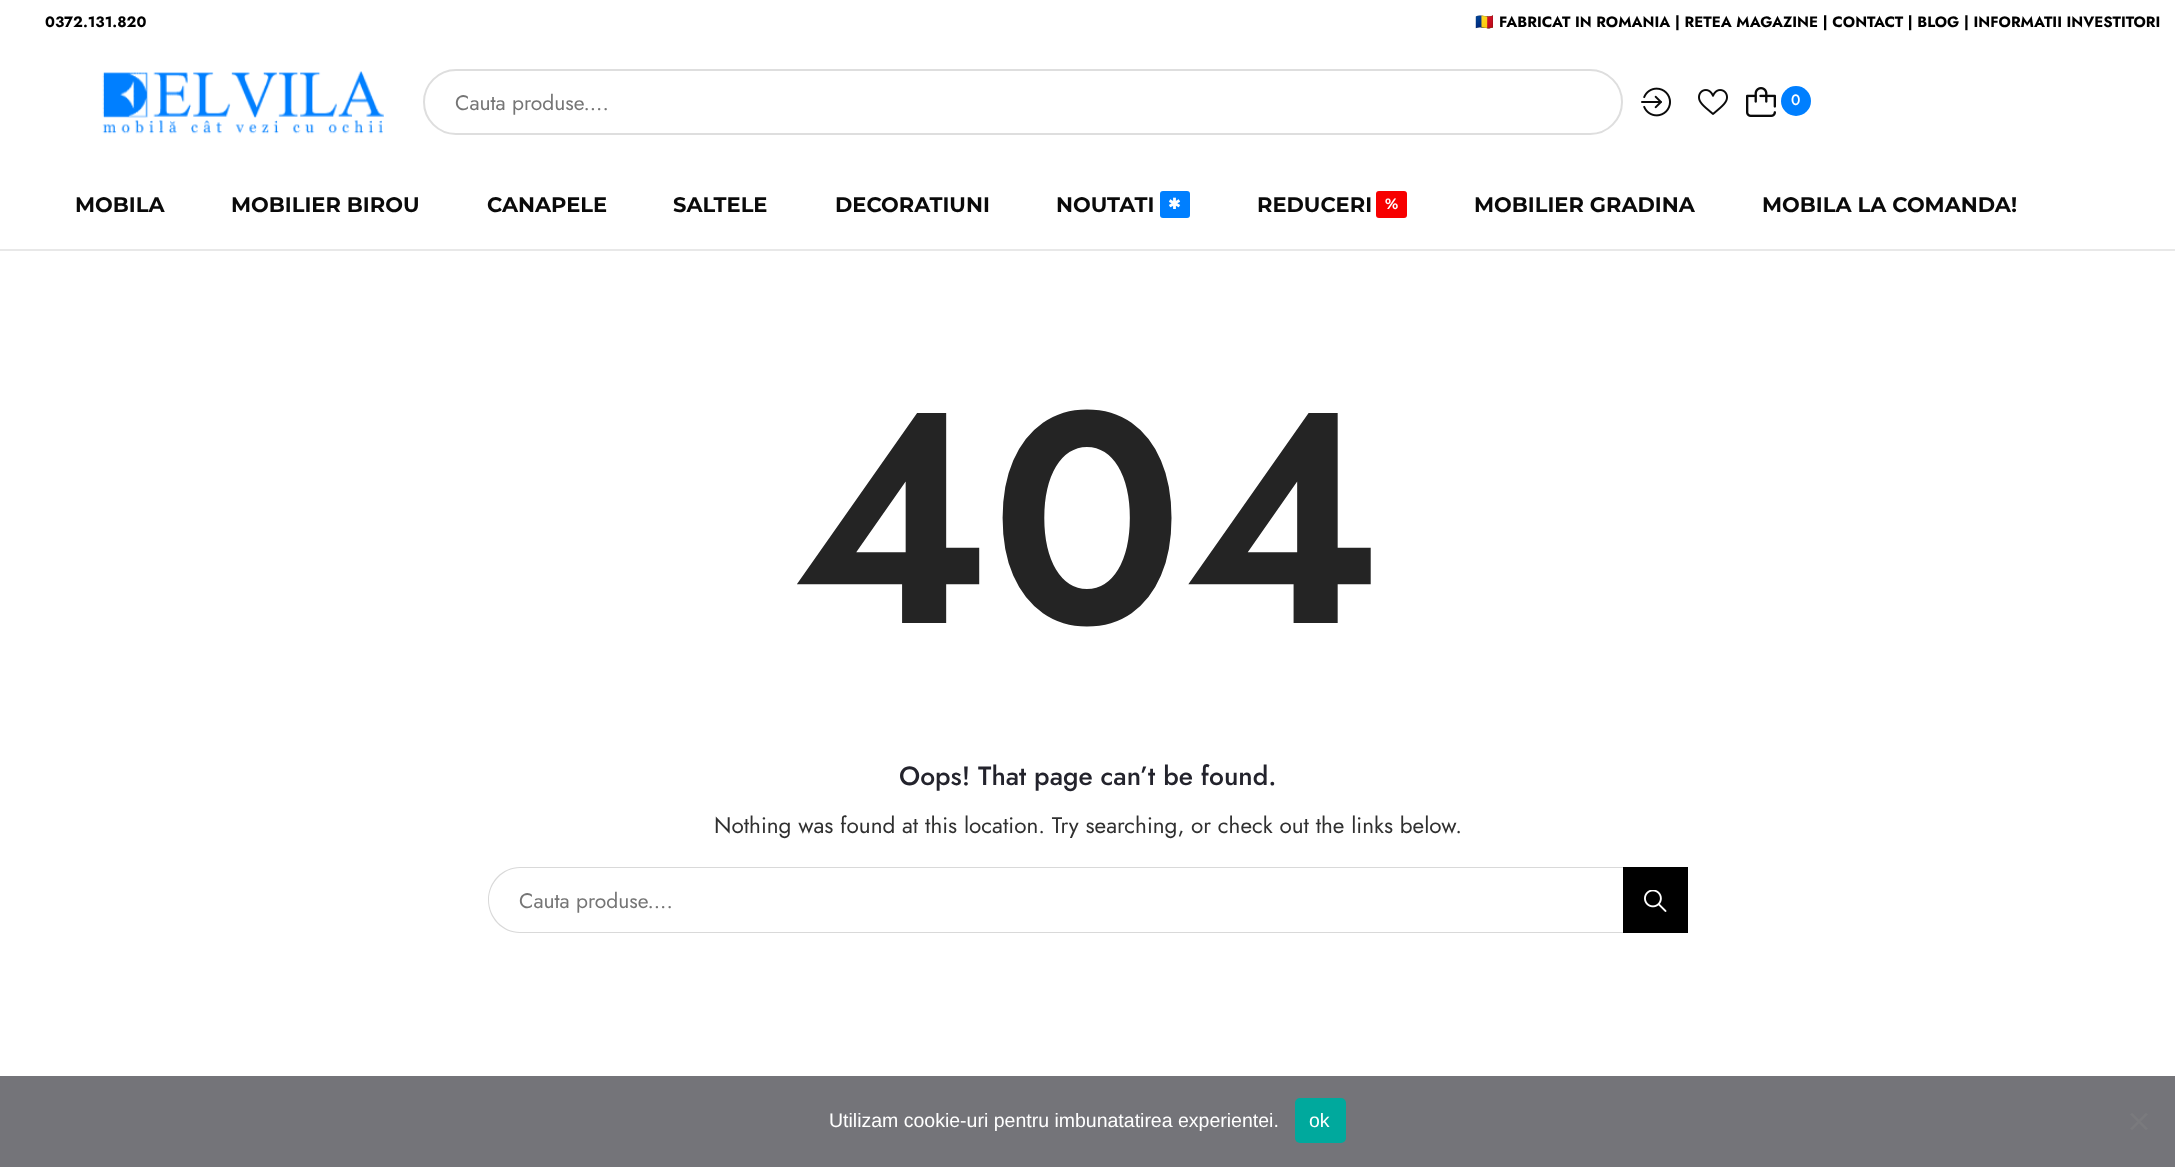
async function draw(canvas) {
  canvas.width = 2175
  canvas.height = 1167
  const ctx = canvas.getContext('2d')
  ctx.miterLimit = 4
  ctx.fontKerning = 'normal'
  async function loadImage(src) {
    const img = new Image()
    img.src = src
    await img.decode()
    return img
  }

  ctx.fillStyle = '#fff'
  ctx.fillRect(0, 0, 2175, 1167)
  ctx.font = 'bold 15px Jost'
  ctx.fillStyle = '#000'
  ctx.fillText('0372.131.820', 45, 27)
  ctx.font = 'bold 15px Noto Color Emoji'
  ctx.fillText('🇷🇴', 1475, 27)
  ctx.font = 'bold 15px Jost'
  ctx.fillText('FABRICAT IN ROMANIA | RETEA MAGAZINE | CONTACT | BLOG | INFORMATII INVESTITORI', 1499, 27)
  ctx.fillStyle = '#e8e8e8'
  ctx.fillRect(0, 249, 2175, 2)
  ctx.drawImage(await loadImage('image0.png'), 102, 71, 282, 63)
  ctx.beginPath()
  ctx.roundRect(424, 70, 1198, 64, 32)
  ctx.strokeStyle = '#dedede'
  ctx.lineWidth = 2
  ctx.stroke()
  ctx.font = '21px Jost'
  ctx.fillStyle = '#757575'
  ctx.fillText('Cauta produse....', 455, 110)
  ctx.drawImage(await loadImage('image1.png'), 1641, 87, 30, 30)
  ctx.drawImage(await loadImage('image2.png'), 1698, 89, 30, 26)
  ctx.drawImage(await loadImage('image3.png'), 1746, 87, 30, 30)
  ctx.fillStyle = '#007fff'
  ctx.beginPath()
  ctx.arc(1796, 101, 15, 0, 2 * Math.PI)
  ctx.fill()
  ctx.font = '500 15px Jost'
  ctx.fillStyle = '#fff'
  ctx.fillText('0', 1791, 105)
  ctx.font = 'bold 21px Montserrat'
  ctx.fillStyle = '#0a0a0a'
  ctx.fillText('MOBILA', 75, 212)
  ctx.fillText('MOBILIER BIROU', 231, 212)
  ctx.fillText('CANAPELE', 487, 212)
  ctx.fillText('SALTELE', 673, 212)
  ctx.fillText('DECORATIUNI', 835, 212)
  ctx.fillText('NOUTATI', 1056, 212)
  ctx.fillStyle = '#007fff'
  ctx.beginPath()
  ctx.roundRect(1160, 191, 30, 27, 3)
  ctx.fill()
  ctx.font = 'bold 15px DejaVu Sans'
  ctx.fillStyle = '#fff'
  ctx.fillText('✱', 1168, 209)
  ctx.font = 'bold 21px Montserrat'
  ctx.fillStyle = '#0a0a0a'
  ctx.fillText('REDUCERI', 1257, 212)
  ctx.fillStyle = '#f70000'
  ctx.beginPath()
  ctx.roundRect(1376, 191, 31, 27, 3)
  ctx.fill()
  ctx.font = 'bold 15px Montserrat'
  ctx.fillStyle = '#fff'
  ctx.fillText('%', 1385, 209)
  ctx.font = 'bold 21px Montserrat'
  ctx.fillStyle = '#0a0a0a'
  ctx.fillText('MOBILIER GRADINA', 1474, 212)
  ctx.fillText('MOBILA LA COMANDA!', 1762, 212)
  ctx.font = '600 300px Jost'
  ctx.fillStyle = '#242424'
  ctx.fillText('404', 792, 623)
  ctx.font = '500 26.4px Jost'
  ctx.fillStyle = '#23232c'
  ctx.fillText('Oops! That page can’t be found.', 899, 785)
  ctx.font = '22.5px Jost'
  ctx.fillStyle = '#303030'
  ctx.fillText('Nothing was found at this location. Try searching, or check out the links below.', 714, 833)
  ctx.fillStyle = '#d9d9d9'
  ctx.beginPath()
  ctx.moveTo(520, 867)
  ctx.lineTo(1623, 867)
  ctx.lineTo(1623, 933)
  ctx.lineTo(520, 933)
  ctx.bezierCurveTo(502, 933, 488, 918, 488, 900)
  ctx.bezierCurveTo(488, 882, 502, 867, 520, 867)
  ctx.closePath()
  ctx.moveTo(520, 868)
  ctx.lineTo(1623, 868)
  ctx.lineTo(1623, 932)
  ctx.lineTo(520, 932)
  ctx.bezierCurveTo(503, 932, 489, 917, 489, 900)
  ctx.bezierCurveTo(489, 883, 503, 868, 520, 868)
  ctx.closePath()
  ctx.fill('evenodd')
  ctx.font = '21px Jost'
  ctx.fillStyle = '#757575'
  ctx.fillText('Cauta produse....', 519, 908)
  ctx.fillStyle = '#000'
  ctx.fillRect(1623, 867, 65, 66)
  ctx.drawImage(await loadImage('image4.png'), 1644, 890, 23, 22)
  ctx.fillStyle = '#747479'
  ctx.fillRect(0, 1076, 2175, 91)
  ctx.font = '19.5px Liberation Sans'
  ctx.fillStyle = '#fff'
  ctx.fillText('Utilizam cookie-uri pentru imbunatatirea experientei.', 829, 1127)
  ctx.fillStyle = '#00a99d'
  ctx.beginPath()
  ctx.roundRect(1295, 1098, 51, 45, 5)
  ctx.fill()
  ctx.fillStyle = '#fff'
  ctx.fillText('ok', 1309, 1127)
  ctx.fillStyle = '#7a7a7d'
  ctx.beginPath()
  ctx.moveTo(2146, 1112.5)
  ctx.lineTo(2148, 1114.5)
  ctx.lineTo(2132, 1130.5)
  ctx.lineTo(2130, 1128.5)
  ctx.closePath()
  ctx.fill()
  ctx.beginPath()
  ctx.moveTo(2130, 1114.5)
  ctx.lineTo(2132, 1112.5)
  ctx.lineTo(2148, 1128.5)
  ctx.lineTo(2146, 1130.5)
  ctx.closePath()
  ctx.fill()
}

draw(document.querySelector('canvas'))
